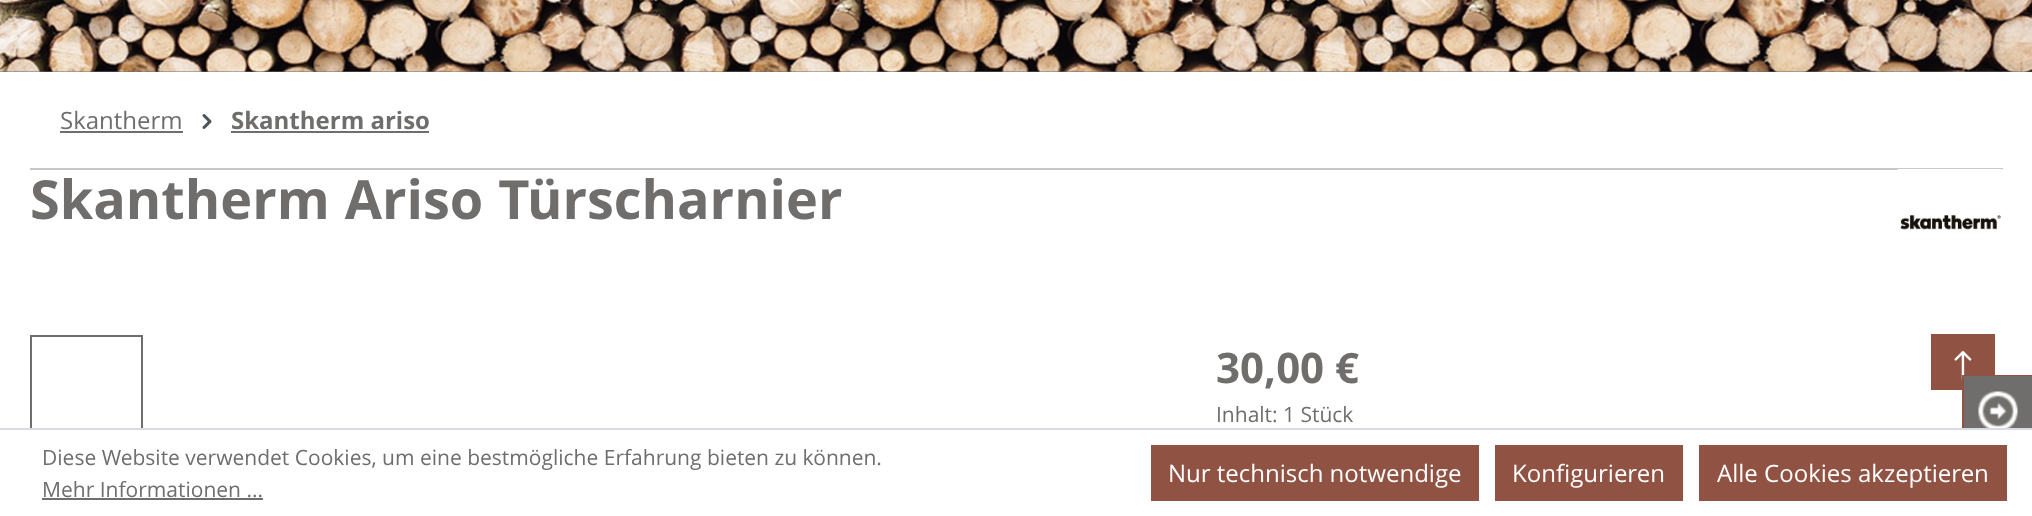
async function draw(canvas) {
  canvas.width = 2032
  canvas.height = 516
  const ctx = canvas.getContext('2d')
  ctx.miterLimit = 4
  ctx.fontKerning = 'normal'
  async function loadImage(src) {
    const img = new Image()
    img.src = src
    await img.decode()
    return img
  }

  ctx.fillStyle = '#6f6e6c'
  ctx.fillRect(0, 0, 2032, 516)
  ctx.drawImage(await loadImage('image0.png'), 0, 0, 2032, 72)
  ctx.fillStyle = '#fff'
  ctx.fillRect(0, 72, 2032, 356)
  ctx.fillStyle = '#c7c7c7'
  ctx.fillRect(30, 168, 1973, 2)
  ctx.font = '24px Open Sans'
  ctx.fillStyle = '#6f6e6c'
  ctx.fillText('Skantherm', 60, 129)
  ctx.fillRect(60, 131, 123, 2)
  ctx.drawImage(await loadImage('image1.png'), 202, 114, 10, 15)
  ctx.font = 'bold 24px Open Sans'
  ctx.fillText('Skantherm ariso', 231, 129)
  ctx.fillRect(231, 131, 198, 2)
  ctx.wordSpacing = '1px'
  ctx.font = 'bold 54px Open Sans'
  ctx.fillText('Skantherm Ariso Türscharnier', 30, 219)
  ctx.drawImage(await loadImage('image2.png'), 1897, 169, 106, 61)
  ctx.strokeStyle = '#6f6e6c'
  ctx.lineWidth = 2
  ctx.strokeRect(31, 336, 111, 95)
  ctx.wordSpacing = '0px'
  ctx.font = 'bold 42px Open Sans'
  ctx.fillText('30,00 €', 1216, 383)
  ctx.font = '21px Open Sans'
  ctx.fillText('Inhalt: 1 Stück', 1216, 422)
  ctx.fillStyle = '#905243'
  ctx.fillRect(1931, 334, 64, 56)
  ctx.drawImage(await loadImage('image3.png'), 1954, 351, 18, 29)
  ctx.strokeStyle = '#905243'
  ctx.strokeRect(1963, 376, 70, 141)
  ctx.fillStyle = '#6f6e6c'
  ctx.beginPath()
  ctx.moveTo(1964, 376)
  ctx.lineTo(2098, 376)
  ctx.lineTo(1964, 512)
  ctx.closePath()
  ctx.fill()
  ctx.fillStyle = '#fff'
  ctx.fillRect(0, 430, 2032, 86)
  ctx.fillStyle = '#dadae5'
  ctx.fillRect(0, 428, 2032, 2)
  ctx.fillStyle = '#6f6e6c'
  ctx.fillText('Diese Website verwendet Cookies, um eine bestmögliche Erfahrung bieten zu können.', 42, 465)
  ctx.fillText('Mehr Informationen ...', 42, 497)
  ctx.fillRect(42, 498, 221, 2)
  ctx.fillStyle = '#905243'
  ctx.fillRect(1151, 445, 328, 56)
  ctx.font = '24px Open Sans'
  ctx.fillStyle = '#fff'
  ctx.fillText('Nur technisch notwendige', 1168, 482)
  ctx.fillStyle = '#905243'
  ctx.fillRect(1495, 445, 188, 56)
  ctx.fillStyle = '#fff'
  ctx.fillText('Konfigurieren', 1512, 482)
  ctx.fillStyle = '#905243'
  ctx.fillRect(1699, 445, 308, 56)
  ctx.fillStyle = '#fff'
  ctx.fillText('Alle Cookies akzeptieren', 1717, 482)
  ctx.drawImage(await loadImage('image4.png'), 1978, 391, 40, 37)
}

draw(document.querySelector('canvas'))
